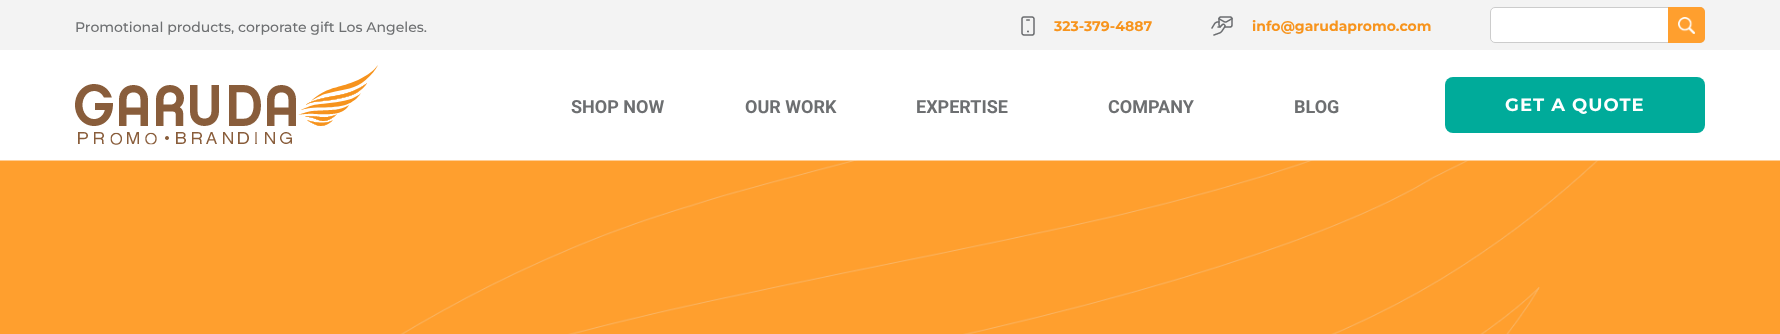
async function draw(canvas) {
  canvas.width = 1780
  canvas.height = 334
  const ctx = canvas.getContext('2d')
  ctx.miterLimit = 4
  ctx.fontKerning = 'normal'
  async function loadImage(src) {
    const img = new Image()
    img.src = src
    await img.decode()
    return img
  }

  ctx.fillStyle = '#fff'
  ctx.fillRect(0, 0, 1780, 334)
  ctx.fillStyle = '#f3f3f3'
  ctx.fillRect(0, 0, 1780, 50)
  ctx.font = '500 14px Montserrat'
  ctx.fillStyle = '#6d6f71'
  ctx.fillText('Promotional products, corporate gift Los Angeles.', 75, 32)
  ctx.drawImage(await loadImage('image0.png'), 1021, 16, 14, 20)
  ctx.font = 'bold 14px Montserrat'
  ctx.fillStyle = '#f7941d'
  ctx.fillText('323-379-4887', 1054, 31)
  ctx.drawImage(await loadImage('image1.png'), 1211, 16, 22, 20)
  ctx.fillText('info@garudapromo.com', 1252, 31)
  ctx.fillStyle = '#fff'
  ctx.beginPath()
  ctx.roundRect(1490.5, 7.5, 214, 35, 4.5)
  ctx.fill()
  ctx.strokeStyle = '#ccc'
  ctx.stroke()
  ctx.fillStyle = '#ff9f2e'
  ctx.beginPath()
  ctx.roundRect(1668, 7, 37, 36, [0, 5, 5, 0])
  ctx.fill()
  ctx.drawImage(await loadImage('image2.png'), 1678, 17, 17, 17)
  ctx.drawImage(await loadImage('image3.png'), 75, 65, 303, 80)
  ctx.font = 'bold 18px Roboto'
  ctx.fillStyle = '#6d6f71'
  ctx.fillText('SHOP NOW', 571, 113)
  ctx.fillText('OUR WORK', 745, 113)
  ctx.fillText('EXPERTISE', 916, 113)
  ctx.fillText('COMPANY', 1108, 113)
  ctx.fillText('BLOG', 1294, 113)
  ctx.fillStyle = '#00ab9a'
  ctx.beginPath()
  ctx.roundRect(1445, 77, 260, 56, 8)
  ctx.fill()
  ctx.letterSpacing = '1px'
  ctx.font = 'bold 18px Montserrat'
  ctx.fillStyle = '#fff'
  ctx.fillText('GET A QUOTE', 1505, 111)
  ctx.drawImage(await loadImage('image4.png'), 0, 160, 1780, 174)
}

draw(document.querySelector('canvas'))
